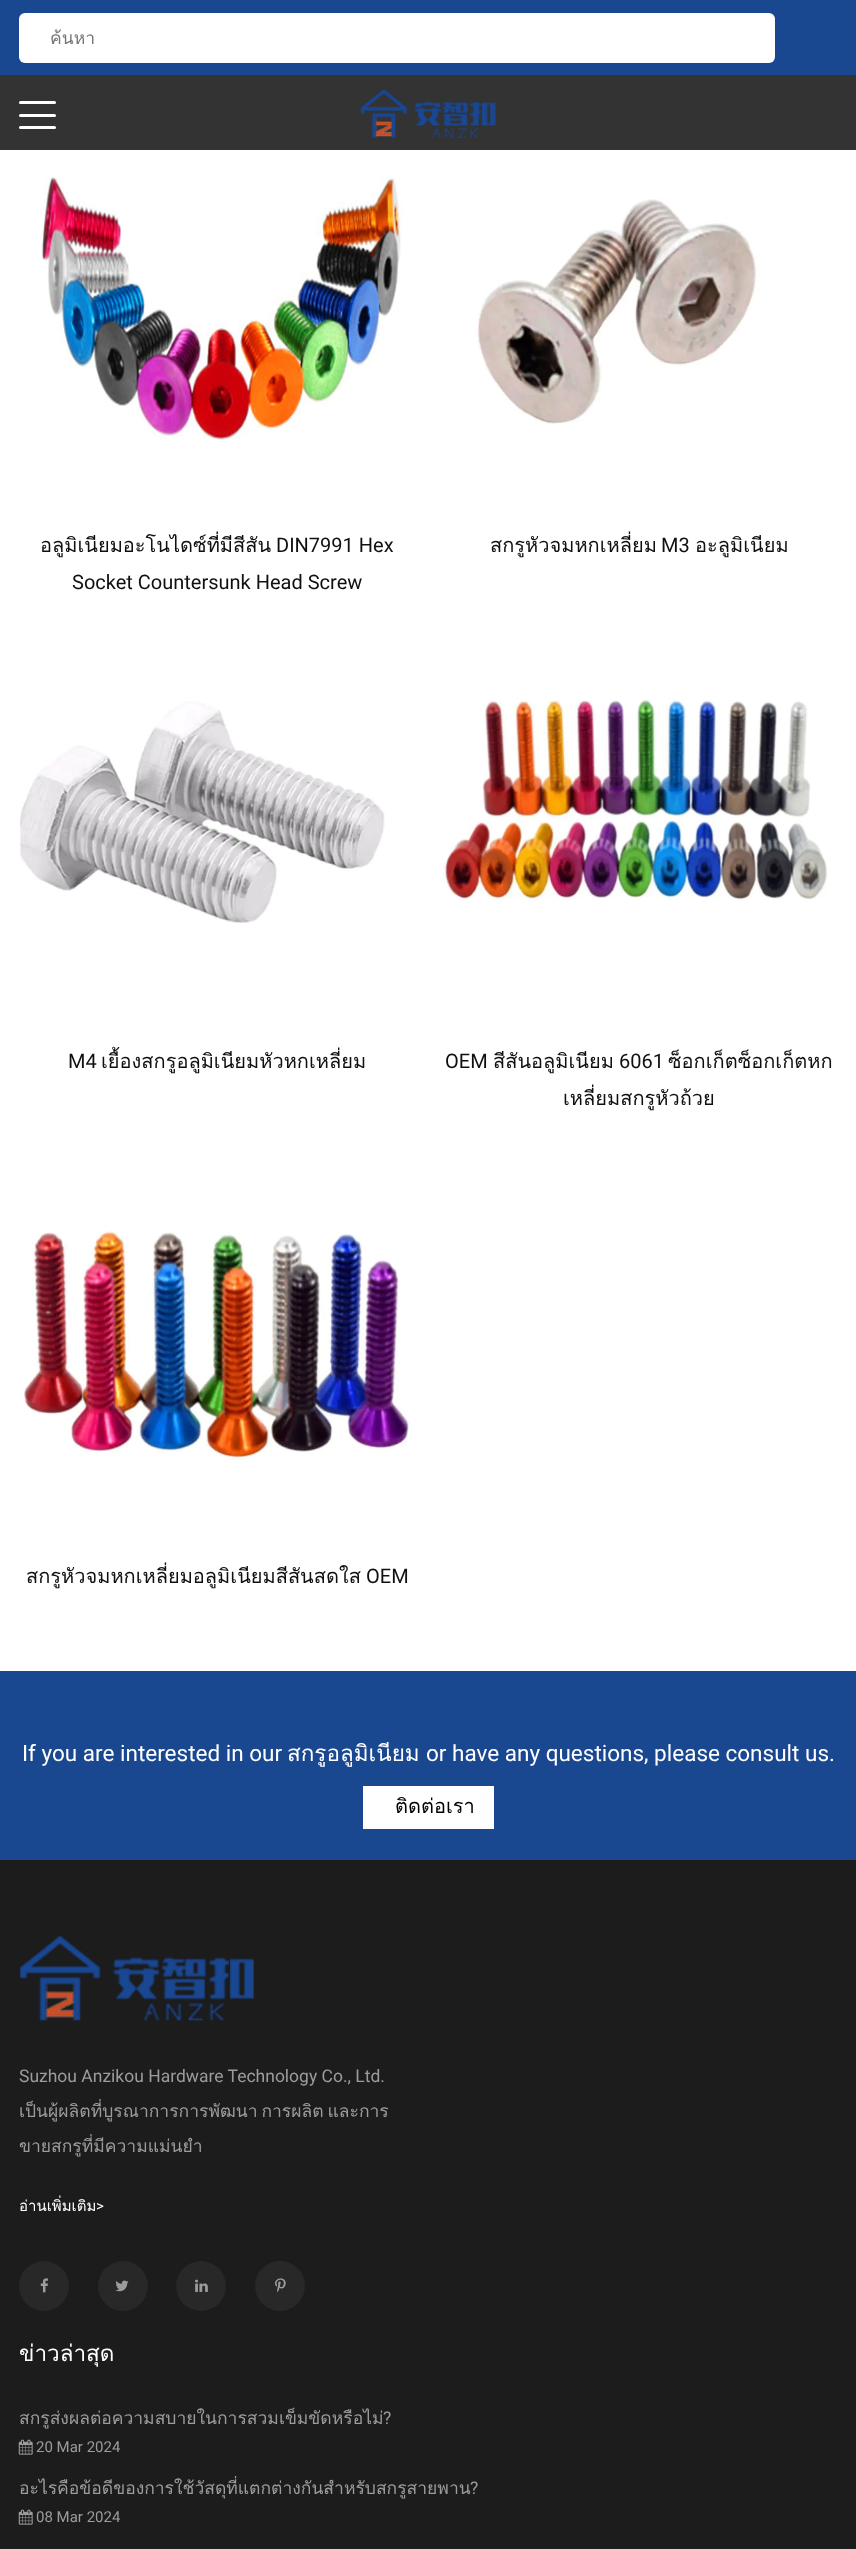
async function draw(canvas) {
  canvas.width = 856
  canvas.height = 2549
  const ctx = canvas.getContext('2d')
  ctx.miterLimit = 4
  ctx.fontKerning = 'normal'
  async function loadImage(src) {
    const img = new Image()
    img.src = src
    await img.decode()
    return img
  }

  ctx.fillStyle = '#fff'
  ctx.fillRect(0, 0, 856, 2549)
  ctx.fillStyle = '#194890'
  ctx.fillRect(0, 0, 856, 75)
  ctx.fillStyle = '#fff'
  ctx.beginPath()
  ctx.roundRect(19, 13, 756, 50, 6)
  ctx.fill()
  ctx.save()
  ctx.beginPath()
  ctx.rect(50, 24, 706, 27)
  ctx.clip()
  ctx.font = '17.5px Loma'
  ctx.fillStyle = '#757575'
  ctx.fillText('ค้นหา', 50, 44)
  ctx.restore()
  ctx.fillStyle = '#333'
  ctx.fillRect(0, 75, 856, 75)
  ctx.fillStyle = '#fff'
  ctx.beginPath()
  ctx.roundRect(19, 101, 37, 3, 1.5)
  ctx.fill()
  ctx.beginPath()
  ctx.roundRect(19, 114, 37, 3, 1.5)
  ctx.fill()
  ctx.beginPath()
  ctx.roundRect(19, 126, 37, 3, 1.5)
  ctx.fill()
  ctx.drawImage(await loadImage('image0.png'), 360, 88, 136, 51)
  ctx.drawImage(await loadImage('image1.png'), 41, 177, 362, 263)
  ctx.font = '20px Loma'
  ctx.fillStyle = '#101010'
  ctx.fillText('อลูมิเนียมอะโนไดซ์ที่มีสีสัน', 40, 552)
  ctx.font = '20px Roboto'
  ctx.fillText('DIN7991 Hex', 276, 552)
  ctx.fillText('Socket Countersunk Head Screw', 72, 589)
  ctx.drawImage(await loadImage('image2.png'), 477, 199, 283, 226)
  ctx.font = '20px Loma'
  ctx.fillText('สกรูหัวจมหกเหลี่ยม', 490, 552)
  ctx.font = '20px Roboto'
  ctx.fillText('M3', 661, 552)
  ctx.font = '20px Loma'
  ctx.fillText('อะลูมิเนียม', 695, 552)
  ctx.drawImage(await loadImage('image3.png'), 20, 701, 365, 222)
  ctx.font = '20px Roboto'
  ctx.fillText('M4', 68, 1068)
  ctx.font = '20px Loma'
  ctx.fillText('เยื้องสกรูอลูมิเนียมหัวหกเหลี่ยม', 101, 1068)
  ctx.drawImage(await loadImage('image4.png'), 443, 700, 385, 201)
  ctx.font = '20px Roboto'
  ctx.fillText('OEM', 445, 1068)
  ctx.font = '20px Loma'
  ctx.fillText('สีสันอลูมิเนียม', 493, 1068)
  ctx.font = '20px Roboto'
  ctx.fillText('6061', 619, 1068)
  ctx.font = '20px Loma'
  ctx.fillText('ซ็อกเก็ตซ็อกเก็ตหก', 668, 1068)
  ctx.fillText('เหลี่ยมสกรูหัวถ้วย', 563, 1105)
  ctx.drawImage(await loadImage('image5.png'), 24, 1231, 386, 229)
  ctx.fillText('สกรูหัวจมหกเหลี่ยมอลูมิเนียมสีสันสดใส', 26, 1583)
  ctx.font = '20px Roboto'
  ctx.fillText('OEM', 366, 1583)
  ctx.fillStyle = '#194890'
  ctx.fillRect(0, 1671, 856, 189)
  ctx.font = '22.5px Roboto'
  ctx.fillStyle = '#fff'
  ctx.fillText('If you are interested in our', 22, 1761)
  ctx.font = '22.5px Loma'
  ctx.fillText('สกรูอลูมิเนียม', 287, 1761)
  ctx.font = '22.5px Roboto'
  ctx.fillText('or have any questions, please consult us.', 426, 1761)
  ctx.fillRect(363, 1786, 131, 43)
  ctx.font = '20px Loma'
  ctx.fillStyle = '#000'
  ctx.fillText('ติดต่อเรา', 395, 1813)
  ctx.fillStyle = '#1c1c1c'
  ctx.fillRect(0, 1860, 856, 689)
  ctx.drawImage(await loadImage('image6.png'), 19, 1935, 235, 86)
  ctx.font = '17.5px Roboto'
  ctx.fillStyle = '#9c9c9c'
  ctx.fillText('Suzhou Anzikou Hardware Technology Co., Ltd.', 19, 2082)
  ctx.wordSpacing = '-2px'
  ctx.font = '17.5px Loma'
  ctx.fillText('เป็นผู้ผลิตที่บูรณาการการพัฒนา การผลิต และการ', 19, 2117)
  ctx.wordSpacing = '0px'
  ctx.fillText('ขายสกรูที่มีความแม่นยำ', 19, 2152)
  ctx.font = '15px Loma'
  ctx.fillStyle = '#fff'
  ctx.fillText('อ่านเพิ่มเติม', 19, 2211)
  ctx.font = '15px Roboto'
  ctx.fillText('>', 96, 2211)
  ctx.fillStyle = '#282828'
  ctx.beginPath()
  ctx.arc(44, 2286, 25, 0, 2 * Math.PI)
  ctx.fill()
  ctx.drawImage(await loadImage('image7.png'), 40, 2278, 8, 15)
  ctx.beginPath()
  ctx.arc(123, 2286, 25, 0, 2 * Math.PI)
  ctx.fill()
  ctx.drawImage(await loadImage('image8.png'), 115, 2280, 14, 12)
  ctx.beginPath()
  ctx.arc(201, 2286, 25, 0, 2 * Math.PI)
  ctx.fill()
  ctx.drawImage(await loadImage('image9.png'), 195, 2279, 13, 13)
  ctx.beginPath()
  ctx.arc(280, 2286, 25, 0, 2 * Math.PI)
  ctx.fill()
  ctx.drawImage(await loadImage('image10.png'), 275, 2278, 11, 15)
  ctx.font = '22.5px Loma'
  ctx.fillStyle = '#fff'
  ctx.fillText('ข่าวล่าสุด', 19, 2361)
  ctx.font = '17.5px Loma'
  ctx.fillStyle = '#9c9c9c'
  ctx.fillText('สกรูส่งผลต่อความสบายในการสวมเข็มขัดหรือไม่', 19, 2424)
  ctx.font = '17.5px Roboto'
  ctx.fillText('?', 383, 2424)
  ctx.drawImage(await loadImage('image11.png'), 18, 2439, 15, 16)
  ctx.font = '15px Roboto'
  ctx.fillText('20 Mar 2024', 36, 2452)
  ctx.font = '17.5px Loma'
  ctx.fillText('อะไรคือข้อดีของการใช้วัสดุที่แตกต่างกันสำหรับสกรูสายพาน', 19, 2494)
  ctx.font = '17.5px Roboto'
  ctx.fillText('?', 470, 2494)
  ctx.drawImage(await loadImage('image11.png'), 18, 2509, 15, 16)
  ctx.font = '15px Roboto'
  ctx.fillText('08 Mar 2024', 36, 2522)
}

draw(document.querySelector('canvas'))
